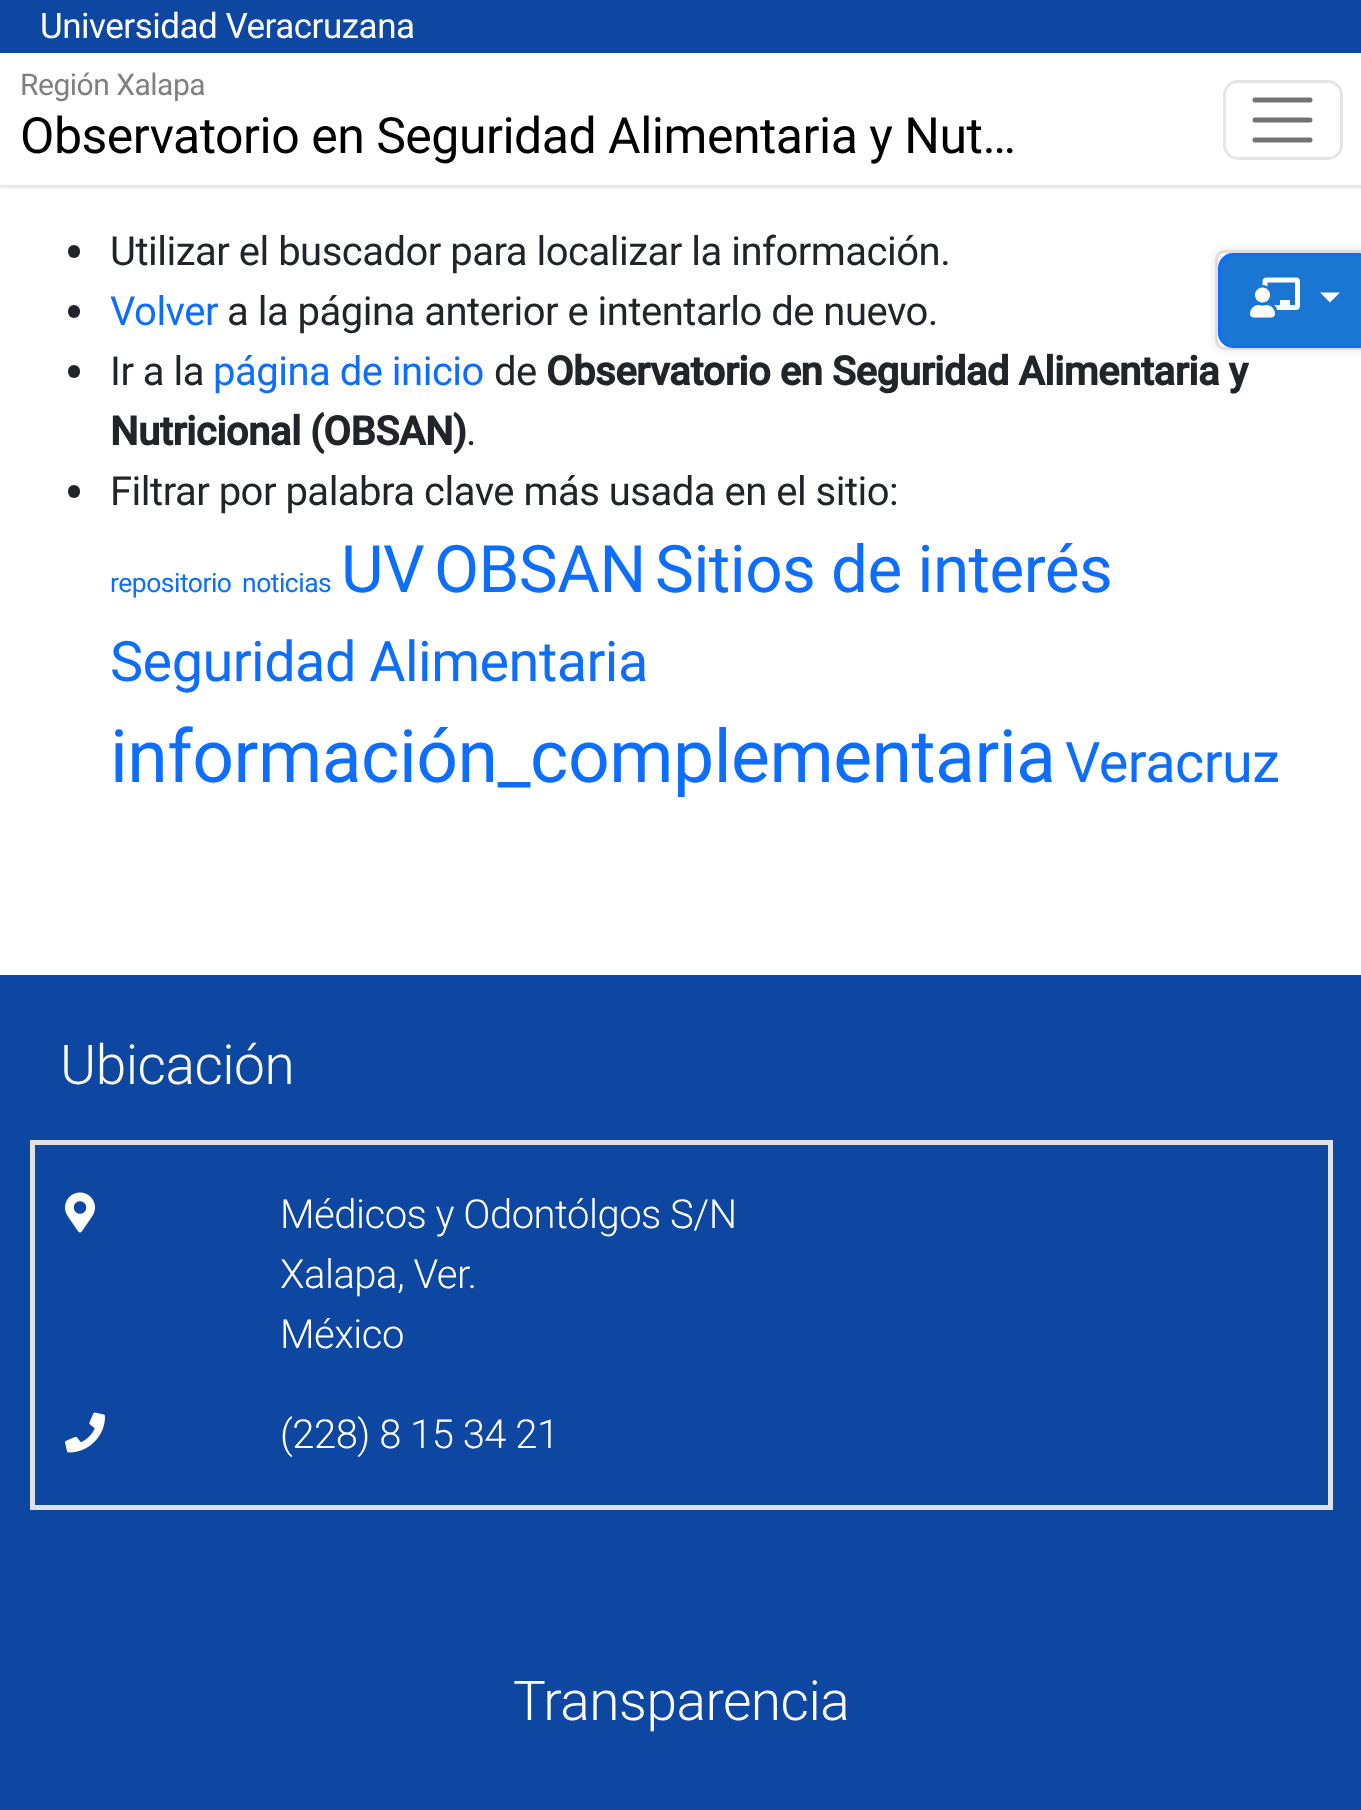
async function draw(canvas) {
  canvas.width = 1361
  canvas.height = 1810
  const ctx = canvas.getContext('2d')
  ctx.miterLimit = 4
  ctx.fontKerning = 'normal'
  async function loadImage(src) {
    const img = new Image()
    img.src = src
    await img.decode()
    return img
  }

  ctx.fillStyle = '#fff'
  ctx.fillRect(0, 0, 1361, 1810)
  ctx.fillStyle = '#0000001a'
  ctx.filter = 'blur(1px)'
  ctx.beginPath()
  ctx.rect(0, 3, 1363, 185)
  ctx.fill()
  ctx.filter = 'none'
  ctx.fillStyle = '#fff'
  ctx.fillRect(0, 53, 1361, 132)
  ctx.fillStyle = '#0e47a1'
  ctx.fillRect(0, 0, 1361, 53)
  ctx.letterSpacing = '-0.5px'
  ctx.font = '35px Roboto'
  ctx.fillStyle = '#fff'
  ctx.fillText('Universidad Veracruzana', 40, 38)
  ctx.font = '30px Roboto'
  ctx.fillStyle = '#808080'
  ctx.fillText('Región Xalapa', 20, 95)
  ctx.font = '50px Roboto'
  ctx.fillStyle = '#000'
  ctx.fillText('Observatorio en Seguridad Alimentaria y Nut…', 20, 153)
  ctx.beginPath()
  ctx.roundRect(1224.5, 81.5, 117, 77, 13.5)
  ctx.strokeStyle = '#e6e6e6'
  ctx.lineWidth = 3
  ctx.stroke()
  ctx.beginPath()
  ctx.moveTo(1255, 100)
  ctx.lineTo(1310, 100)
  ctx.moveTo(1255, 120)
  ctx.lineTo(1310, 120)
  ctx.moveTo(1255, 140)
  ctx.lineTo(1310, 140)
  ctx.strokeStyle = '#737373'
  ctx.lineWidth = 5
  ctx.lineCap = 'round'
  ctx.stroke()
  ctx.fillStyle = '#212529'
  ctx.beginPath()
  ctx.roundRect(68, 245, 12, 13, 6)
  ctx.fill()
  ctx.font = '40px Roboto'
  ctx.fillText('Utilizar el buscador para localizar la información.', 110, 265)
  ctx.beginPath()
  ctx.roundRect(68, 305, 12, 13, 6)
  ctx.fill()
  ctx.fillStyle = '#0d6efd'
  ctx.fillText('Volver', 110, 325)
  ctx.fillStyle = '#212529'
  ctx.fillText('a la página anterior e intentarlo de nuevo.', 227, 325)
  ctx.beginPath()
  ctx.roundRect(68, 365, 12, 13, 6)
  ctx.fill()
  ctx.fillText('Ir a la', 110, 385)
  ctx.fillStyle = '#0d6efd'
  ctx.fillText('página de inicio', 213, 385)
  ctx.fillStyle = '#212529'
  ctx.fillText('de', 494, 385)
  ctx.font = 'bold 40px Roboto'
  ctx.fillText('Observatorio en Seguridad Alimentaria y', 546, 385)
  ctx.fillText('Nutricional (OBSAN)', 110, 445)
  ctx.font = '40px Roboto'
  ctx.fillText('.', 466, 445)
  ctx.beginPath()
  ctx.roundRect(68, 485, 12, 13, 6)
  ctx.fill()
  ctx.fillText('Filtrar por palabra clave más usada en el sitio:', 110, 505)
  ctx.font = '26.5px Roboto'
  ctx.fillStyle = '#0d6efd'
  ctx.fillText('repositorio', 110, 592)
  ctx.fillText('noticias', 242, 592)
  ctx.font = '65.5px Roboto'
  ctx.fillText('UV', 341, 592)
  ctx.fillText('OBSAN', 434, 592)
  ctx.fillText('Sitios de interés', 655, 592)
  ctx.font = '55.75px Roboto'
  ctx.fillText('Seguridad Alimentaria', 110, 681)
  ctx.font = '73.3px Roboto'
  ctx.fillText('información_complementaria', 110, 782)
  ctx.font = '55.75px Roboto'
  ctx.fillText('Veracruz', 1065, 782)
  ctx.fillStyle = '#0000001a'
  ctx.filter = 'blur(5px)'
  ctx.beginPath()
  ctx.roundRect(1215, 250, 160, 100, 10)
  ctx.fill()
  ctx.filter = 'none'
  ctx.fillStyle = '#fff'
  ctx.beginPath()
  ctx.roundRect(1216.5, 251.5, 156, 97, 8.5)
  ctx.fill()
  ctx.strokeStyle = '#ddd'
  ctx.lineWidth = 3
  ctx.stroke()
  ctx.fillStyle = '#1976d2'
  ctx.beginPath()
  ctx.roundRect(1219.5, 254.5, 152, 92, 13.5)
  ctx.fill()
  ctx.strokeStyle = '#0d6efd'
  ctx.stroke()
  ctx.drawImage(await loadImage('image0.png'), 1250, 277, 50, 41)
  ctx.fillStyle = '#fff'
  ctx.beginPath()
  ctx.moveTo(1320, 292.5)
  ctx.lineTo(1340, 292.5)
  ctx.lineTo(1330, 302.5)
  ctx.closePath()
  ctx.fill()
  ctx.fillStyle = '#0e47a1'
  ctx.fillRect(0, 975, 1361, 835)
  ctx.font = '300 55px Roboto'
  ctx.fillStyle = '#fff'
  ctx.fillText('Ubicación', 60, 1084)
  ctx.strokeStyle = '#dee2e6'
  ctx.lineWidth = 5
  ctx.strokeRect(32.5, 1142.5, 1298, 365)
  ctx.drawImage(await loadImage('image1.png'), 65, 1192, 30, 41)
  ctx.font = '300 40px Roboto'
  ctx.fillText('Médicos y Odontólgos S/N', 280, 1228)
  ctx.fillText('Xalapa, Ver.', 280, 1288)
  ctx.fillText('México', 280, 1348)
  ctx.drawImage(await loadImage('image2.png'), 65, 1412, 40, 41)
  ctx.fillText('(228) 8 15 34 21', 280, 1448)
  ctx.font = '300 55px Roboto'
  ctx.fillText('Transparencia', 513, 1720)
}

draw(document.querySelector('canvas'))
